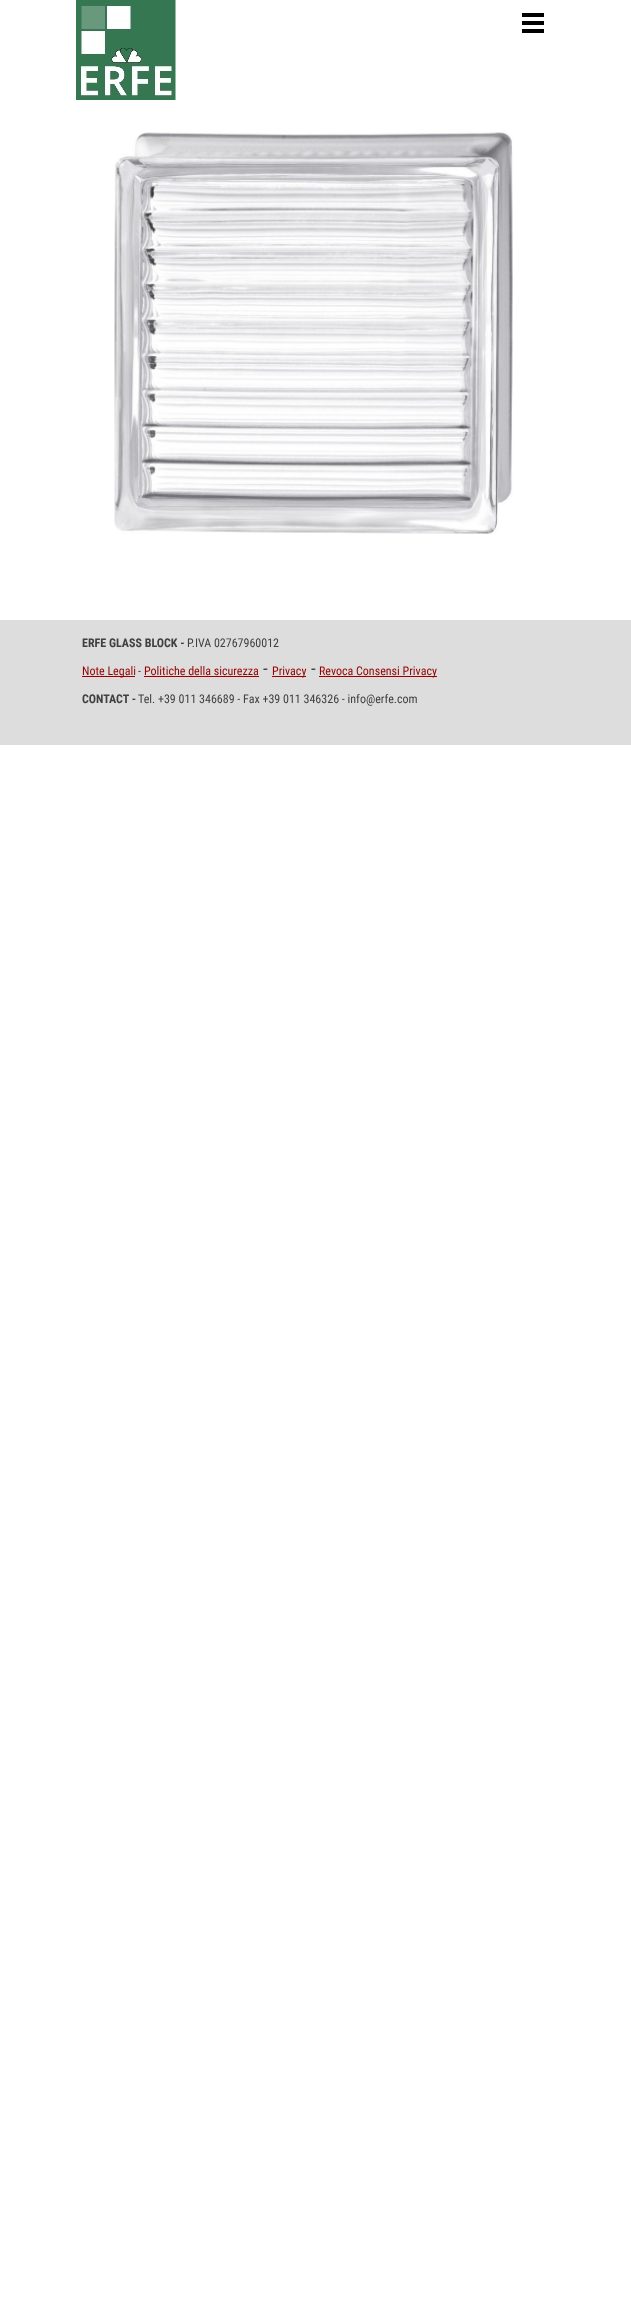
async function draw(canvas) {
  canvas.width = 631
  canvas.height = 2305
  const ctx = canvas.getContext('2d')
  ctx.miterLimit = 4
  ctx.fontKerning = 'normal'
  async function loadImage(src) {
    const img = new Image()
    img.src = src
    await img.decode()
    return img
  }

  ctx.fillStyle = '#fff'
  ctx.fillRect(0, 0, 631, 2305)
  ctx.drawImage(await loadImage('image0.png'), 76, 0, 100, 100)
  ctx.fillStyle = '#000'
  ctx.fillRect(522, 13, 22, 4)
  ctx.fillRect(522, 21, 22, 4)
  ctx.fillRect(522, 29, 22, 4)
  ctx.drawImage(await loadImage('image1.png'), 114, 132, 399, 402)
  ctx.fillStyle = '#ddd'
  ctx.fillRect(0, 620, 631, 125)
  ctx.font = 'bold 12px Roboto Condensed'
  ctx.fillStyle = '#404040'
  ctx.fillText('ERFE GLASS BLOCK -', 82, 647)
  ctx.font = '12px Roboto Condensed'
  ctx.fillText('P.IVA 02767960012', 187, 647)
  ctx.fillStyle = '#980000'
  ctx.fillRect(82, 676, 53, 1)
  ctx.fillText('Note Legali', 82, 675)
  ctx.fillStyle = '#404040'
  ctx.fillText('-', 138, 675)
  ctx.fillStyle = '#980000'
  ctx.fillText('Politiche della sicurezza', 144, 675)
  ctx.fillRect(144, 676, 115, 1)
  ctx.font = '19px Roboto Condensed'
  ctx.fillStyle = '#404040'
  ctx.fillText('-', 263, 675)
  ctx.fillStyle = '#980000'
  ctx.fillRect(272, 676, 34, 1)
  ctx.font = '12px Roboto Condensed'
  ctx.fillText('Privacy', 272, 675)
  ctx.font = '19px Roboto Condensed'
  ctx.fillStyle = '#404040'
  ctx.fillText('-', 311, 675)
  ctx.fillStyle = '#980000'
  ctx.fillRect(319, 676, 118, 1)
  ctx.font = '12px Roboto Condensed'
  ctx.fillText('Revoca Consensi Privacy', 319, 675)
  ctx.font = 'bold 12px Roboto Condensed'
  ctx.fillStyle = '#404040'
  ctx.fillText('CONTACT -', 82, 703)
  ctx.font = '12px Roboto Condensed'
  ctx.fillText('Tel. +39 011 346689 - Fax +39 011 346326 - info@erfe.com', 138, 703)
}

draw(document.querySelector('canvas'))
